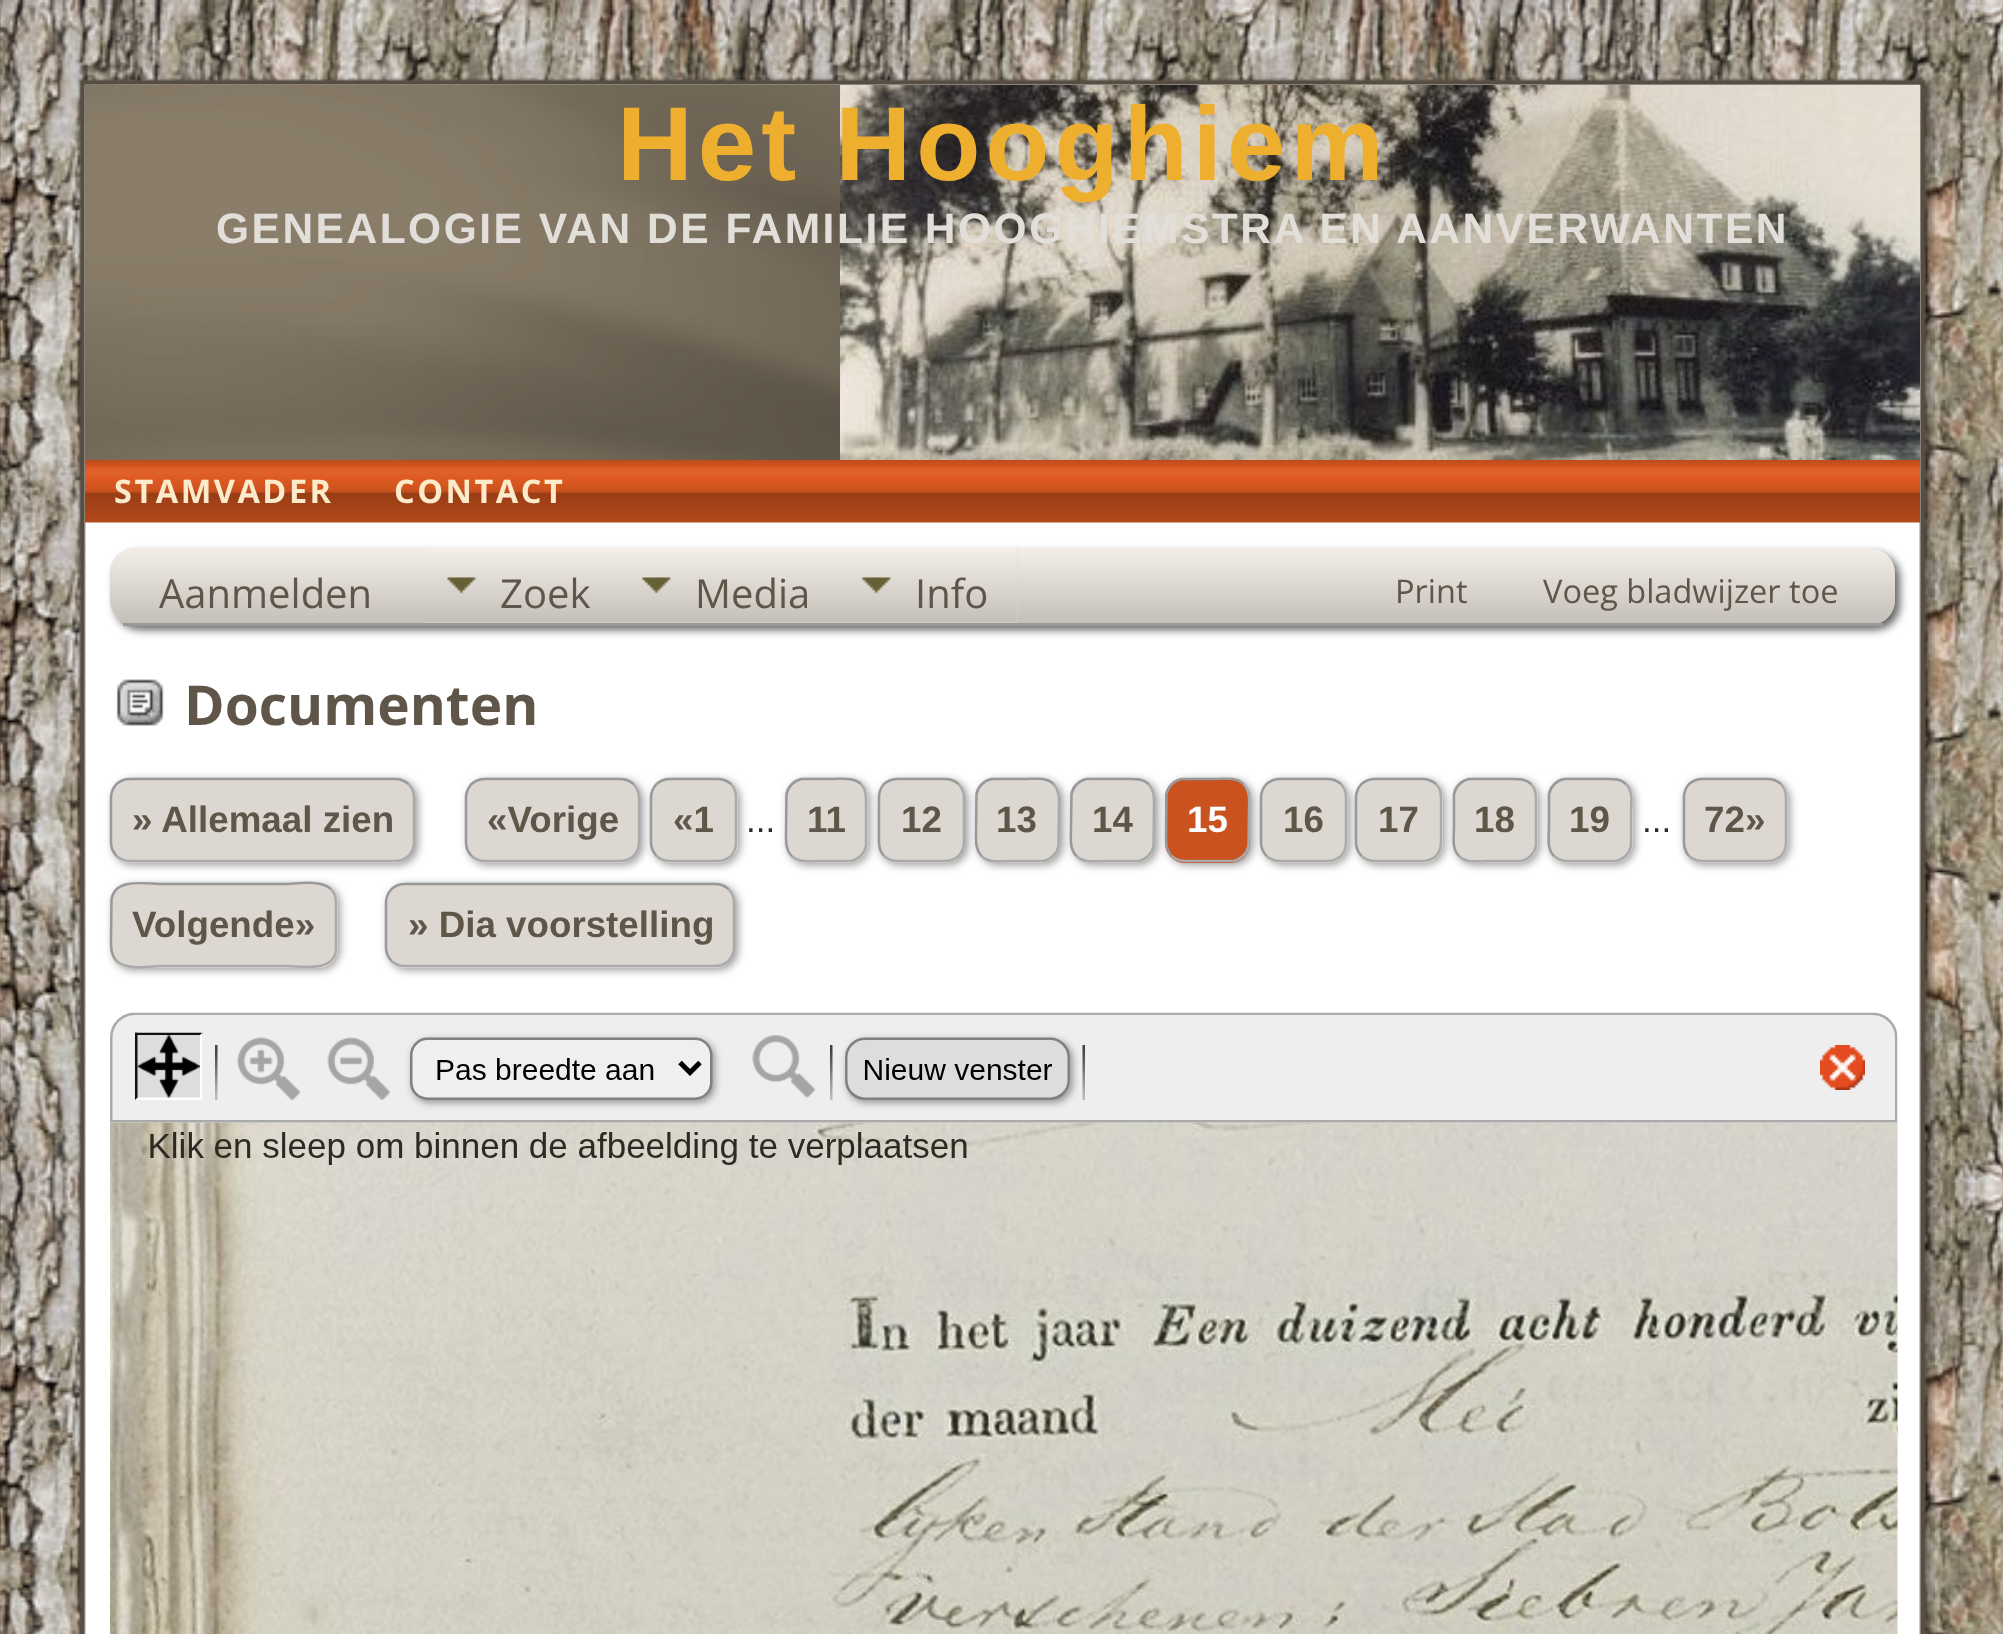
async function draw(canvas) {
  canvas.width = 2003
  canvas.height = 1634
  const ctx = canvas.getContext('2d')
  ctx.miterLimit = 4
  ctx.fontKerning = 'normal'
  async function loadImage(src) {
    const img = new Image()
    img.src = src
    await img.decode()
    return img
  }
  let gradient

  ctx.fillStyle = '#fff'
  ctx.fillRect(0, 0, 2003, 1634)
  ctx.drawImage(await loadImage('image0.png'), 0, 0, 2003, 1634)
  ctx.drawImage(await loadImage('image1.png'), 77, 77, 38, 38)
  ctx.drawImage(await loadImage('image2.png'), 115, 77, 1775, 8)
  ctx.drawImage(await loadImage('image3.png'), 1890, 77, 45, 38)
  ctx.drawImage(await loadImage('image4.png'), 77, 115, 38, 1519)
  ctx.drawImage(await loadImage('image5.png'), 85, 85, 755, 375)
  ctx.drawImage(await loadImage('image13.png'), 1890, 115, 45, 1519)
  ctx.drawImage(await loadImage('image6.png'), 840, 85, 1080, 375)
  ctx.letterSpacing = '5px'
  ctx.font = 'bold 105px Liberation Sans'
  ctx.fillStyle = '#efaf2e'
  ctx.fillText('Het Hooghiem', 617, 180)
  ctx.letterSpacing = '2.5px'
  ctx.font = 'bold 42.5px Liberation Sans'
  ctx.fillStyle = '#e2dfda'
  ctx.fillText('GENEALOGIE VAN DE FAMILIE HOOGHIEMSTRA EN AANVERWANTEN', 216, 243)
  ctx.fillStyle = '#fff'
  ctx.fillRect(115, 522, 1775, 601)
  ctx.drawImage(await loadImage('image7.png'), 85, 460, 1835, 63)
  ctx.font = 'bold 32.5px Open Sans'
  ctx.fillStyle = '#fbebcb'
  ctx.fillText('STAMVADER', 114, 503)
  ctx.fillText('CONTACT', 394, 503)
  ctx.fillStyle = '#666'
  ctx.filter = 'blur(4px)'
  ctx.beginPath()
  ctx.roundRect(115, 553, 1785, 77, 25)
  ctx.fill()
  ctx.filter = 'none'
  ctx.fillStyle = '#dcd7d1'
  ctx.beginPath()
  ctx.roundRect(110, 548, 1785, 77, 25)
  ctx.fill()
  ctx.save()
  ctx.beginPath()
  ctx.roundRect(110, 548, 1785, 77, 25)
  ctx.clip()
  gradient = ctx.createLinearGradient(1003, 547, 1003, 623)
  gradient.addColorStop(0, '#f5efe9')
  gradient.addColorStop(1, '#c5bfb9')
  ctx.fillStyle = gradient
  ctx.beginPath()
  ctx.roundRect(110, 548, 1785, 75, [25, 25, 0, 0])
  ctx.fill()
  ctx.restore()
  ctx.fillStyle = '#999'
  ctx.fillRect(123, 623, 1760, 3)
  ctx.letterSpacing = '0px'
  ctx.font = '40px Open Sans'
  ctx.fillStyle = '#5f5649'
  ctx.fillText('Aanmelden', 159, 608)
  ctx.fillStyle = '#dcd7d1'
  ctx.fillRect(425, 622, 415, 1)
  ctx.drawImage(await loadImage('image8.png'), 425, 547, 195, 76)
  ctx.fillStyle = '#5f5649'
  ctx.fillText('Zoek', 500, 608)
  ctx.drawImage(await loadImage('image9.png'), 620, 547, 220, 76)
  ctx.fillText('Media', 695, 608)
  ctx.fillStyle = '#dcd7d1'
  ctx.fillRect(840, 548, 178, 75)
  ctx.drawImage(await loadImage('image10.png'), 840, 547, 178, 76)
  ctx.fillStyle = '#5f5649'
  ctx.fillText('Info', 915, 608)
  ctx.font = '32.5px Open Sans'
  ctx.fillText('Print', 1395, 603)
  ctx.fillText('Voeg bladwijzer toe', 1543, 603)
  ctx.drawImage(await loadImage('image11.png'), 116, 679, 48, 47)
  ctx.font = 'bold 55px Open Sans'
  ctx.fillText('Documenten', 184, 725)
  ctx.fillStyle = '#999'
  ctx.filter = 'blur(4px)'
  ctx.beginPath()
  ctx.roundRect(113, 780, 305, 85, 20)
  ctx.fill()
  ctx.filter = 'none'
  ctx.fillStyle = '#dcd7d1'
  ctx.beginPath()
  ctx.roundRect(110, 778, 305, 85, 20)
  ctx.fill()
  ctx.beginPath()
  ctx.moveTo(408.5, 784)
  ctx.bezierCurveTo(412, 788, 414, 792.5, 414, 797.5)
  ctx.lineTo(414, 842.5)
  ctx.bezierCurveTo(414, 847.5, 412, 852, 408.5, 856)
  ctx.bezierCurveTo(404.5, 859.5, 400, 861, 395, 861)
  ctx.lineTo(130, 861)
  ctx.bezierCurveTo(125, 861, 120.5, 859.5, 116.5, 856)
  ctx.strokeStyle = '#aaa'
  ctx.lineWidth = 2.5
  ctx.stroke()
  ctx.beginPath()
  ctx.moveTo(116.5, 856)
  ctx.bezierCurveTo(113, 852, 111, 847.5, 111, 842.5)
  ctx.lineTo(111, 797.5)
  ctx.bezierCurveTo(111, 792.5, 113, 788, 116.5, 784)
  ctx.bezierCurveTo(120.5, 780.5, 125, 779, 130, 779)
  ctx.lineTo(395, 779)
  ctx.bezierCurveTo(400, 779, 404.5, 780.5, 408.5, 784)
  ctx.strokeStyle = '#999'
  ctx.stroke()
  ctx.font = 'bold 36.75px Liberation Sans'
  ctx.fillStyle = '#5f5649'
  ctx.fillText('» Allemaal zien', 132, 832)
  ctx.fillStyle = '#999'
  ctx.filter = 'blur(4px)'
  ctx.beginPath()
  ctx.roundRect(468, 780, 175, 85, 20)
  ctx.fill()
  ctx.filter = 'none'
  ctx.fillStyle = '#dcd7d1'
  ctx.beginPath()
  ctx.roundRect(465, 778, 175, 85, 20)
  ctx.fill()
  ctx.beginPath()
  ctx.moveTo(633.5, 784)
  ctx.bezierCurveTo(637, 788, 639, 792.5, 639, 797.5)
  ctx.lineTo(639, 842.5)
  ctx.bezierCurveTo(639, 847.5, 637, 852, 633.5, 856)
  ctx.bezierCurveTo(629.5, 859.5, 625, 861, 620, 861)
  ctx.lineTo(485, 861)
  ctx.bezierCurveTo(480, 861, 475.5, 859.5, 471.5, 856)
  ctx.strokeStyle = '#aaa'
  ctx.stroke()
  ctx.beginPath()
  ctx.moveTo(471.5, 856)
  ctx.bezierCurveTo(468, 852, 466, 847.5, 466, 842.5)
  ctx.lineTo(466, 797.5)
  ctx.bezierCurveTo(466, 792.5, 468, 788, 471.5, 784)
  ctx.bezierCurveTo(475.5, 780.5, 480, 779, 485, 779)
  ctx.lineTo(620, 779)
  ctx.bezierCurveTo(625, 779, 629.5, 780.5, 633.5, 784)
  ctx.strokeStyle = '#999'
  ctx.stroke()
  ctx.fillStyle = '#5f5649'
  ctx.fillText('«Vorige', 487, 832)
  ctx.fillStyle = '#999'
  ctx.filter = 'blur(4px)'
  ctx.beginPath()
  ctx.roundRect(653, 780, 87, 85, 20)
  ctx.fill()
  ctx.filter = 'none'
  ctx.fillStyle = '#dcd7d1'
  ctx.beginPath()
  ctx.roundRect(650, 778, 88, 85, 20)
  ctx.fill()
  ctx.beginPath()
  ctx.moveTo(731, 784)
  ctx.bezierCurveTo(734.5, 788, 736, 792.5, 736, 797.5)
  ctx.lineTo(736, 842.5)
  ctx.bezierCurveTo(736, 847.5, 734.5, 852, 731, 856)
  ctx.bezierCurveTo(727, 859.5, 722.5, 861, 717.5, 861)
  ctx.lineTo(670, 861)
  ctx.bezierCurveTo(665, 861, 660.5, 859.5, 656.5, 856)
  ctx.strokeStyle = '#aaa'
  ctx.stroke()
  ctx.beginPath()
  ctx.moveTo(656.5, 856)
  ctx.bezierCurveTo(653, 852, 651, 847.5, 651, 842.5)
  ctx.lineTo(651, 797.5)
  ctx.bezierCurveTo(651, 792.5, 653, 788, 656.5, 784)
  ctx.bezierCurveTo(660.5, 780.5, 665, 779, 670, 779)
  ctx.lineTo(717.5, 779)
  ctx.bezierCurveTo(722.5, 779, 727, 780.5, 731, 784)
  ctx.strokeStyle = '#999'
  ctx.stroke()
  ctx.fillStyle = '#5f5649'
  ctx.fillText('«1', 673, 832)
  ctx.font = '35px Liberation Sans'
  ctx.fillStyle = '#2e2a23'
  ctx.fillText('...', 746, 832)
  ctx.fillStyle = '#999'
  ctx.filter = 'blur(4px)'
  ctx.beginPath()
  ctx.roundRect(788, 780, 82, 85, 20)
  ctx.fill()
  ctx.filter = 'none'
  ctx.fillStyle = '#dcd7d1'
  ctx.beginPath()
  ctx.roundRect(785, 778, 83, 85, 20)
  ctx.fill()
  ctx.beginPath()
  ctx.moveTo(861, 784)
  ctx.bezierCurveTo(866.5, 790, 866, 797, 866, 805)
  ctx.lineTo(866, 846)
  ctx.bezierCurveTo(864.5, 853.5, 858.5, 859.5, 851, 861)
  ctx.lineTo(819, 861)
  ctx.bezierCurveTo(809.5, 861, 799, 863, 791.5, 856)
  ctx.strokeStyle = '#aaa'
  ctx.stroke()
  ctx.beginPath()
  ctx.moveTo(791.5, 856)
  ctx.bezierCurveTo(786, 850, 786, 843, 786, 835)
  ctx.lineTo(786.5, 794)
  ctx.bezierCurveTo(788, 786.5, 794, 780.5, 801.5, 779)
  ctx.lineTo(833.5, 779)
  ctx.bezierCurveTo(843, 779, 853.5, 777, 861, 784)
  ctx.strokeStyle = '#999'
  ctx.stroke()
  ctx.font = 'bold 36.75px Liberation Sans'
  ctx.fillStyle = '#5f5649'
  ctx.fillText('11', 807, 832)
  ctx.fillStyle = '#999'
  ctx.filter = 'blur(4px)'
  ctx.beginPath()
  ctx.roundRect(880, 780, 88, 85, 20)
  ctx.fill()
  ctx.filter = 'none'
  ctx.fillStyle = '#dcd7d1'
  ctx.beginPath()
  ctx.roundRect(878, 778, 87, 85, 20)
  ctx.fill()
  ctx.beginPath()
  ctx.moveTo(958.5, 784)
  ctx.bezierCurveTo(962, 788, 964, 792.5, 964, 797.5)
  ctx.lineTo(964, 842.5)
  ctx.bezierCurveTo(964, 847.5, 962, 852, 958.5, 856)
  ctx.bezierCurveTo(954.5, 859.5, 950, 861, 945, 861)
  ctx.lineTo(897.5, 861)
  ctx.bezierCurveTo(892.5, 861, 888, 859.5, 884, 856)
  ctx.strokeStyle = '#aaa'
  ctx.stroke()
  ctx.beginPath()
  ctx.moveTo(884, 856)
  ctx.bezierCurveTo(880.5, 852, 879, 847.5, 879, 842.5)
  ctx.lineTo(879, 797.5)
  ctx.bezierCurveTo(879, 792.5, 880.5, 788, 884, 784)
  ctx.bezierCurveTo(888, 780.5, 892.5, 779, 897.5, 779)
  ctx.lineTo(945, 779)
  ctx.bezierCurveTo(950, 779, 954.5, 780.5, 958.5, 784)
  ctx.strokeStyle = '#999'
  ctx.stroke()
  ctx.fillStyle = '#5f5649'
  ctx.fillText('12', 901, 832)
  ctx.fillStyle = '#999'
  ctx.filter = 'blur(4px)'
  ctx.beginPath()
  ctx.roundRect(978, 780, 85, 85, 20)
  ctx.fill()
  ctx.filter = 'none'
  ctx.fillStyle = '#dcd7d1'
  ctx.beginPath()
  ctx.roundRect(975, 778, 85, 85, 20)
  ctx.fill()
  ctx.beginPath()
  ctx.moveTo(1053.5, 784)
  ctx.bezierCurveTo(1059, 790, 1059, 797, 1059, 805)
  ctx.lineTo(1058.5, 846)
  ctx.bezierCurveTo(1057, 853.5, 1051, 859.5, 1043.5, 861)
  ctx.lineTo(1010, 861)
  ctx.bezierCurveTo(1000.5, 861, 989, 863.5, 981.5, 856)
  ctx.strokeStyle = '#aaa'
  ctx.stroke()
  ctx.beginPath()
  ctx.moveTo(981.5, 856)
  ctx.bezierCurveTo(976, 850, 976, 843, 976, 835)
  ctx.lineTo(976.5, 794)
  ctx.bezierCurveTo(978, 786.5, 984, 780.5, 991.5, 779)
  ctx.lineTo(1025, 779)
  ctx.bezierCurveTo(1034.5, 779, 1046, 776.5, 1053.5, 784)
  ctx.strokeStyle = '#999'
  ctx.stroke()
  ctx.fillStyle = '#5f5649'
  ctx.fillText('13', 996, 832)
  ctx.fillStyle = '#999'
  ctx.filter = 'blur(4px)'
  ctx.beginPath()
  ctx.roundRect(1073, 780, 85, 85, 20)
  ctx.fill()
  ctx.filter = 'none'
  ctx.fillStyle = '#dcd7d1'
  ctx.beginPath()
  ctx.roundRect(1070, 778, 85, 85, 20)
  ctx.fill()
  ctx.beginPath()
  ctx.moveTo(1148.5, 784)
  ctx.bezierCurveTo(1154, 790, 1154, 797, 1154, 805)
  ctx.lineTo(1153.5, 846)
  ctx.bezierCurveTo(1152, 853.5, 1146, 859.5, 1138.5, 861)
  ctx.lineTo(1105, 861)
  ctx.bezierCurveTo(1095.5, 861, 1084, 863.5, 1076.5, 856)
  ctx.strokeStyle = '#aaa'
  ctx.stroke()
  ctx.beginPath()
  ctx.moveTo(1076.5, 856)
  ctx.bezierCurveTo(1069, 848.5, 1071, 837, 1071, 827.5)
  ctx.lineTo(1071.5, 794)
  ctx.bezierCurveTo(1073, 786.5, 1079, 780.5, 1086.5, 779)
  ctx.lineTo(1127.5, 779)
  ctx.bezierCurveTo(1135.5, 779, 1142.5, 778.5, 1148.5, 784)
  ctx.strokeStyle = '#999'
  ctx.stroke()
  ctx.fillStyle = '#5f5649'
  ctx.fillText('14', 1092, 832)
  ctx.fillStyle = '#999'
  ctx.filter = 'blur(4px)'
  ctx.beginPath()
  ctx.roundRect(1168, 780, 85, 85, 20)
  ctx.fill()
  ctx.filter = 'none'
  ctx.fillStyle = '#ca521e'
  ctx.beginPath()
  ctx.roundRect(1165, 778, 85, 85, 20)
  ctx.fill()
  ctx.beginPath()
  ctx.moveTo(1243.5, 784)
  ctx.bezierCurveTo(1251, 791.5, 1249, 803, 1249, 812.5)
  ctx.lineTo(1248.5, 846)
  ctx.bezierCurveTo(1247, 853.5, 1241, 859.5, 1233.5, 861)
  ctx.lineTo(1192.5, 861)
  ctx.bezierCurveTo(1184.5, 861, 1177.5, 861.5, 1171.5, 856)
  ctx.strokeStyle = '#aaa'
  ctx.stroke()
  ctx.beginPath()
  ctx.moveTo(1171.5, 856)
  ctx.bezierCurveTo(1166, 850, 1166, 843, 1166, 835)
  ctx.lineTo(1166.5, 794)
  ctx.bezierCurveTo(1168, 786.5, 1174, 780.5, 1181.5, 779)
  ctx.lineTo(1215, 779)
  ctx.bezierCurveTo(1224.5, 779, 1236, 776.5, 1243.5, 784)
  ctx.strokeStyle = '#999'
  ctx.stroke()
  ctx.fillStyle = '#fff'
  ctx.fillText('15', 1187, 832)
  ctx.fillStyle = '#999'
  ctx.filter = 'blur(4px)'
  ctx.beginPath()
  ctx.roundRect(1263, 780, 87, 85, 20)
  ctx.fill()
  ctx.filter = 'none'
  ctx.fillStyle = '#dcd7d1'
  ctx.beginPath()
  ctx.roundRect(1260, 778, 88, 85, 20)
  ctx.fill()
  ctx.beginPath()
  ctx.moveTo(1341, 784)
  ctx.bezierCurveTo(1344.5, 788, 1346, 792.5, 1346, 797.5)
  ctx.lineTo(1346, 842.5)
  ctx.bezierCurveTo(1346, 847.5, 1344.5, 852, 1341, 856)
  ctx.bezierCurveTo(1337, 859.5, 1332.5, 861, 1327.5, 861)
  ctx.lineTo(1280, 861)
  ctx.bezierCurveTo(1275, 861, 1270.5, 859.5, 1266.5, 856)
  ctx.strokeStyle = '#aaa'
  ctx.stroke()
  ctx.beginPath()
  ctx.moveTo(1266.5, 856)
  ctx.bezierCurveTo(1263, 852, 1261, 847.5, 1261, 842.5)
  ctx.lineTo(1261, 797.5)
  ctx.bezierCurveTo(1261, 792.5, 1263, 788, 1266.5, 784)
  ctx.bezierCurveTo(1270.5, 780.5, 1275, 779, 1280, 779)
  ctx.lineTo(1327.5, 779)
  ctx.bezierCurveTo(1332.5, 779, 1337, 780.5, 1341, 784)
  ctx.strokeStyle = '#999'
  ctx.stroke()
  ctx.fillStyle = '#5f5649'
  ctx.fillText('16', 1283, 832)
  ctx.fillStyle = '#999'
  ctx.filter = 'blur(4px)'
  ctx.beginPath()
  ctx.roundRect(1358, 780, 87, 85, 20)
  ctx.fill()
  ctx.filter = 'none'
  ctx.fillStyle = '#dcd7d1'
  ctx.beginPath()
  ctx.roundRect(1355, 778, 88, 85, 20)
  ctx.fill()
  ctx.beginPath()
  ctx.moveTo(1436, 784)
  ctx.bezierCurveTo(1439.5, 788, 1441, 792.5, 1441, 797.5)
  ctx.lineTo(1441, 842.5)
  ctx.bezierCurveTo(1441, 847.5, 1439.5, 852, 1436, 856)
  ctx.bezierCurveTo(1432, 859.5, 1427.5, 861, 1422.5, 861)
  ctx.lineTo(1375, 861)
  ctx.bezierCurveTo(1370, 861, 1365.5, 859.5, 1361.5, 856)
  ctx.strokeStyle = '#aaa'
  ctx.stroke()
  ctx.beginPath()
  ctx.moveTo(1361.5, 856)
  ctx.bezierCurveTo(1358, 852, 1356, 847.5, 1356, 842.5)
  ctx.lineTo(1356, 797.5)
  ctx.bezierCurveTo(1356, 792.5, 1358, 788, 1361.5, 784)
  ctx.bezierCurveTo(1365.5, 780.5, 1370, 779, 1375, 779)
  ctx.lineTo(1422.5, 779)
  ctx.bezierCurveTo(1427.5, 779, 1432, 780.5, 1436, 784)
  ctx.strokeStyle = '#999'
  ctx.stroke()
  ctx.fillStyle = '#5f5649'
  ctx.fillText('17', 1378, 832)
  ctx.fillStyle = '#999'
  ctx.filter = 'blur(4px)'
  ctx.beginPath()
  ctx.roundRect(1455, 780, 85, 85, 20)
  ctx.fill()
  ctx.filter = 'none'
  ctx.fillStyle = '#dcd7d1'
  ctx.beginPath()
  ctx.roundRect(1453, 778, 85, 85, 20)
  ctx.fill()
  ctx.beginPath()
  ctx.moveTo(1531, 784)
  ctx.bezierCurveTo(1536.5, 790, 1536, 797, 1536, 805)
  ctx.lineTo(1536, 846)
  ctx.bezierCurveTo(1534.5, 853.5, 1528.5, 859.5, 1521, 861)
  ctx.lineTo(1487.5, 861)
  ctx.bezierCurveTo(1478, 861, 1466.5, 863.5, 1459, 856)
  ctx.strokeStyle = '#aaa'
  ctx.stroke()
  ctx.beginPath()
  ctx.moveTo(1459, 856)
  ctx.bezierCurveTo(1451.5, 848.5, 1454, 837, 1454, 827.5)
  ctx.lineTo(1454, 794)
  ctx.bezierCurveTo(1455.5, 786.5, 1461.5, 780.5, 1469, 779)
  ctx.lineTo(1510, 779)
  ctx.bezierCurveTo(1518, 779, 1525, 778.5, 1531, 784)
  ctx.strokeStyle = '#999'
  ctx.stroke()
  ctx.fillStyle = '#5f5649'
  ctx.fillText('18', 1474, 832)
  ctx.fillStyle = '#999'
  ctx.filter = 'blur(4px)'
  ctx.beginPath()
  ctx.roundRect(1550, 780, 85, 85, 20)
  ctx.fill()
  ctx.filter = 'none'
  ctx.fillStyle = '#dcd7d1'
  ctx.beginPath()
  ctx.roundRect(1548, 778, 85, 85, 20)
  ctx.fill()
  ctx.beginPath()
  ctx.moveTo(1626, 784)
  ctx.bezierCurveTo(1633.5, 791.5, 1631, 803, 1631, 812.5)
  ctx.lineTo(1631, 846)
  ctx.bezierCurveTo(1629.5, 853.5, 1623.5, 859.5, 1616, 861)
  ctx.lineTo(1575, 861)
  ctx.bezierCurveTo(1567, 861, 1560, 861.5, 1554, 856)
  ctx.strokeStyle = '#aaa'
  ctx.stroke()
  ctx.beginPath()
  ctx.moveTo(1554, 856)
  ctx.bezierCurveTo(1546.5, 848.5, 1549, 837, 1549, 827.5)
  ctx.lineTo(1549, 794)
  ctx.bezierCurveTo(1550.5, 786.5, 1556.5, 780.5, 1564, 779)
  ctx.lineTo(1605, 779)
  ctx.bezierCurveTo(1613, 779, 1620, 778.5, 1626, 784)
  ctx.strokeStyle = '#999'
  ctx.stroke()
  ctx.fillStyle = '#5f5649'
  ctx.fillText('19', 1569, 832)
  ctx.font = '35px Liberation Sans'
  ctx.fillStyle = '#2e2a23'
  ctx.fillText('...', 1642, 832)
  ctx.fillStyle = '#999'
  ctx.filter = 'blur(4px)'
  ctx.beginPath()
  ctx.roundRect(1685, 780, 105, 85, 20)
  ctx.fill()
  ctx.filter = 'none'
  ctx.fillStyle = '#dcd7d1'
  ctx.beginPath()
  ctx.roundRect(1683, 778, 105, 85, 20)
  ctx.fill()
  ctx.beginPath()
  ctx.moveTo(1781, 784)
  ctx.bezierCurveTo(1784.5, 788, 1786, 792.5, 1786, 797.5)
  ctx.lineTo(1786, 842.5)
  ctx.bezierCurveTo(1786, 847.5, 1784.5, 852, 1781, 856)
  ctx.bezierCurveTo(1777, 859.5, 1772.5, 861, 1767.5, 861)
  ctx.lineTo(1702.5, 861)
  ctx.bezierCurveTo(1697.5, 861, 1693, 859.5, 1689, 856)
  ctx.strokeStyle = '#aaa'
  ctx.stroke()
  ctx.beginPath()
  ctx.moveTo(1689, 856)
  ctx.bezierCurveTo(1685.5, 852, 1684, 847.5, 1684, 842.5)
  ctx.lineTo(1684, 797.5)
  ctx.bezierCurveTo(1684, 792.5, 1685.5, 788, 1689, 784)
  ctx.bezierCurveTo(1693, 780.5, 1697.5, 779, 1702.5, 779)
  ctx.lineTo(1767.5, 779)
  ctx.bezierCurveTo(1772.5, 779, 1777, 780.5, 1781, 784)
  ctx.strokeStyle = '#999'
  ctx.stroke()
  ctx.font = 'bold 36.75px Liberation Sans'
  ctx.fillStyle = '#5f5649'
  ctx.fillText('72»', 1704, 832)
  ctx.fillStyle = '#999'
  ctx.filter = 'blur(4px)'
  ctx.beginPath()
  ctx.roundRect(113, 885, 227, 85, 20)
  ctx.fill()
  ctx.filter = 'none'
  ctx.fillStyle = '#dcd7d1'
  ctx.beginPath()
  ctx.roundRect(110, 883, 228, 85, 20)
  ctx.fill()
  ctx.beginPath()
  ctx.moveTo(331, 889)
  ctx.bezierCurveTo(336.5, 895, 336, 902, 336, 910)
  ctx.lineTo(336, 949.5)
  ctx.bezierCurveTo(334, 973, 300.5, 966, 286, 966)
  ctx.lineTo(161, 966)
  ctx.bezierCurveTo(152.5, 966, 127, 971, 116.5, 961)
  ctx.strokeStyle = '#aaa'
  ctx.stroke()
  ctx.beginPath()
  ctx.moveTo(116.5, 961)
  ctx.bezierCurveTo(111, 955, 111, 948, 111, 940)
  ctx.lineTo(111.5, 900.5)
  ctx.bezierCurveTo(113.5, 877, 147, 884, 161, 884)
  ctx.lineTo(286, 884)
  ctx.bezierCurveTo(295, 884, 320.5, 879, 331, 889)
  ctx.strokeStyle = '#999'
  ctx.stroke()
  ctx.fillStyle = '#5f5649'
  ctx.fillText('Volgende»', 132, 937)
  ctx.fillStyle = '#999'
  ctx.filter = 'blur(4px)'
  ctx.beginPath()
  ctx.roundRect(388, 885, 350, 85, 20)
  ctx.fill()
  ctx.filter = 'none'
  ctx.fillStyle = '#dcd7d1'
  ctx.beginPath()
  ctx.roundRect(385, 883, 350, 85, 20)
  ctx.fill()
  ctx.beginPath()
  ctx.moveTo(728.5, 889)
  ctx.bezierCurveTo(732, 893, 734, 897.5, 734, 902.5)
  ctx.lineTo(734, 947.5)
  ctx.bezierCurveTo(734, 952.5, 732, 957, 728.5, 961)
  ctx.bezierCurveTo(724.5, 964.5, 720, 966, 715, 966)
  ctx.lineTo(405, 966)
  ctx.bezierCurveTo(400, 966, 395.5, 964.5, 391.5, 961)
  ctx.strokeStyle = '#aaa'
  ctx.stroke()
  ctx.beginPath()
  ctx.moveTo(391.5, 961)
  ctx.bezierCurveTo(388, 957, 386, 952.5, 386, 947.5)
  ctx.lineTo(386, 902.5)
  ctx.bezierCurveTo(386, 897.5, 388, 893, 391.5, 889)
  ctx.bezierCurveTo(395.5, 885.5, 400, 884, 405, 884)
  ctx.lineTo(715, 884)
  ctx.bezierCurveTo(720, 884, 724.5, 885.5, 728.5, 889)
  ctx.strokeStyle = '#999'
  ctx.stroke()
  ctx.fillStyle = '#5f5649'
  ctx.fillText('» Dia voorstelling', 408, 937)
  ctx.drawImage(await loadImage('image12.png'), 110, 1012, 1788, 622)
}

draw(document.querySelector('canvas'))
